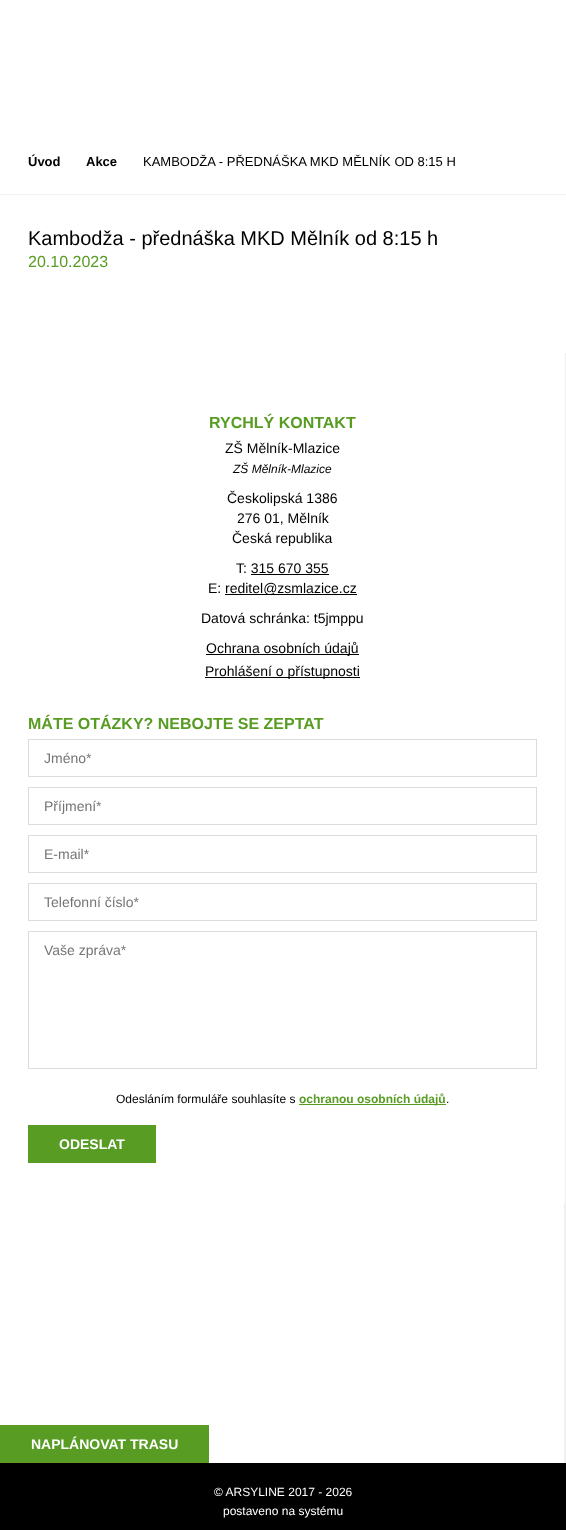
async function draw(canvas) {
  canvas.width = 566
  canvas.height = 1530
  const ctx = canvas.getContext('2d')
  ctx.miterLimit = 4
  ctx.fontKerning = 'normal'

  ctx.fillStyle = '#fff'
  ctx.fillRect(0, 0, 566, 1530)
  ctx.fillStyle = '#f2f2f2'
  ctx.fillRect(0, 194, 566, 1)
  ctx.font = 'bold 13px Liberation Sans'
  ctx.fillStyle = '#000'
  ctx.fillText('Úvod', 28, 166)
  ctx.fillText('Akce', 86, 166)
  ctx.font = '13px Liberation Sans'
  ctx.fillText('KAMBODŽA - PŘEDNÁŠKA MKD MĚLNÍK OD 8:15 H', 143, 166)
  ctx.font = '20px Liberation Sans'
  ctx.fillText('Kambodža - přednáška MKD Mělník od 8:15 h', 28, 245)
  ctx.font = '16px Liberation Sans'
  ctx.fillStyle = '#589c24'
  ctx.fillText('20.10.2023', 28, 267)
  ctx.fillStyle = '#f0f0f0'
  ctx.fillRect(565, 353, 1, 1110)
  ctx.font = 'bold 16px Liberation Sans'
  ctx.fillStyle = '#589c24'
  ctx.fillText('RYCHLÝ KONTAKT', 209, 428)
  ctx.font = '14px Liberation Sans'
  ctx.fillStyle = '#000'
  ctx.fillText('ZŠ Mělník-Mlazice', 225, 453)
  ctx.font = 'italic 12px Liberation Sans'
  ctx.fillText('ZŠ Mělník-Mlazice', 233, 473)
  ctx.font = '14px Liberation Sans'
  ctx.fillText('Českolipská 1386', 227, 503)
  ctx.fillText('276 01, Mělník', 237, 523)
  ctx.fillText('Česká republika', 232, 543)
  ctx.fillText('T: 315 670 355', 236, 573)
  ctx.fillRect(251, 574, 78, 1)
  ctx.fillText('E:', 208, 593)
  ctx.fillRect(225, 594, 132, 1)
  ctx.fillText('reditel@zsmlazice.cz', 225, 593)
  ctx.fillText('Datová schránka: t5jmppu', 201, 623)
  ctx.fillRect(206, 654, 153, 1)
  ctx.fillText('Ochrana osobních údajů', 206, 653)
  ctx.fillRect(205, 677, 155, 1)
  ctx.fillText('Prohlášení o přístupnosti', 205, 676)
  ctx.font = 'bold 16px Liberation Sans'
  ctx.fillStyle = '#589c24'
  ctx.fillText('MÁTE OTÁZKY? NEBOJTE SE ZEPTAT', 28, 729)
  ctx.strokeStyle = '#dbdbdb'
  ctx.strokeRect(28.5, 739.5, 508, 37)
  ctx.font = '14px Liberation Sans'
  ctx.fillStyle = '#757575'
  ctx.fillText('Jméno*', 44, 763)
  ctx.strokeRect(28.5, 787.5, 508, 37)
  ctx.fillText('Příjmení*', 44, 811)
  ctx.strokeRect(28.5, 835.5, 508, 37)
  ctx.fillText('E-mail*', 44, 859)
  ctx.strokeRect(28.5, 883.5, 508, 37)
  ctx.fillText('Telefonní číslo*', 44, 907)
  ctx.strokeRect(28.5, 931.5, 508, 137)
  ctx.fillText('Vaše zpráva*', 44, 955)
  ctx.font = '12px Liberation Sans'
  ctx.fillStyle = '#000'
  ctx.fillText('Odesláním formuláře souhlasíte s', 116, 1103)
  ctx.fillStyle = '#589c24'
  ctx.fillRect(299, 1104, 147, 1)
  ctx.font = 'bold 12px Liberation Sans'
  ctx.fillText('ochranou osobních údajů', 299, 1103)
  ctx.font = '12px Liberation Sans'
  ctx.fillStyle = '#000'
  ctx.fillText('.', 446, 1103)
  ctx.fillStyle = '#589c24'
  ctx.fillRect(28, 1125, 128, 38)
  ctx.font = 'bold 14px Liberation Sans'
  ctx.fillStyle = '#fff'
  ctx.fillText('ODESLAT', 59, 1149)
  ctx.fillStyle = '#f0f0f0'
  ctx.fillRect(564, 1203, 1, 260)
  ctx.fillStyle = '#589c24'
  ctx.fillRect(0, 1425, 209, 38)
  ctx.fillStyle = '#fff'
  ctx.fillText('NAPLÁNOVAT TRASU', 31, 1449)
  ctx.fillStyle = '#000'
  ctx.fillRect(0, 1463, 566, 67)
  ctx.font = '12px Liberation Sans'
  ctx.fillStyle = '#fff'
  ctx.fillText('© ARSYLINE 2017 - 2026', 214, 1496)
  ctx.fillText('postaveno na systému', 223, 1515)
}

draw(document.querySelector('canvas'))
